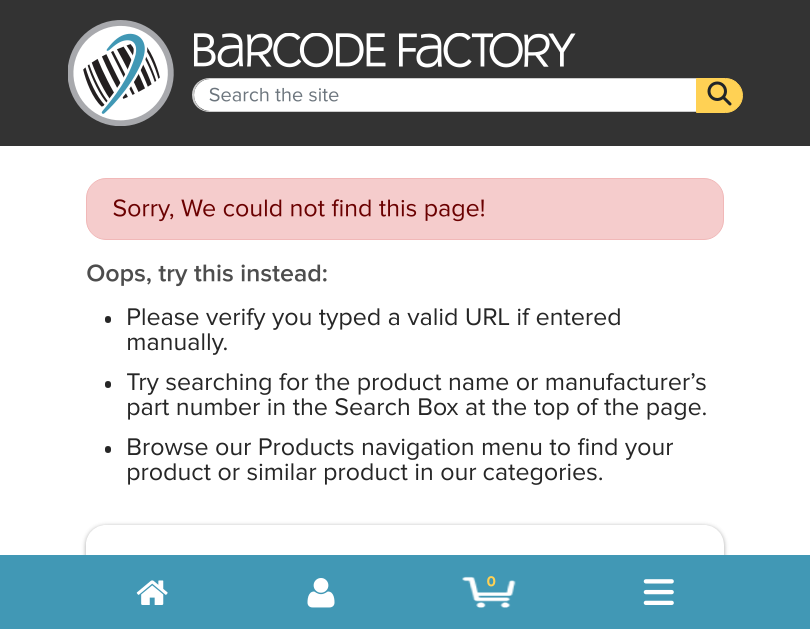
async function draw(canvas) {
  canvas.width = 810
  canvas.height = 629
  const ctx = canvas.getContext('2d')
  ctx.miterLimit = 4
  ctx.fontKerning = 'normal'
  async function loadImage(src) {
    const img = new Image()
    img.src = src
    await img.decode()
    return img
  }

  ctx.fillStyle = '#fff'
  ctx.fillRect(0, 0, 810, 629)
  ctx.fillStyle = '#333'
  ctx.fillRect(0, 0, 810, 146)
  ctx.drawImage(await loadImage('image0.png'), 68, 20, 106, 106)
  ctx.drawImage(await loadImage('image1.png'), 194, 33, 382, 35)
  ctx.fillStyle = '#fff'
  ctx.beginPath()
  ctx.roundRect(194, 79, 504, 32, [16, 0, 0, 16])
  ctx.fill()
  ctx.fillStyle = '#ccc'
  ctx.beginPath()
  ctx.moveTo(210, 78)
  ctx.lineTo(698, 78)
  ctx.lineTo(698, 112)
  ctx.lineTo(210, 112)
  ctx.bezierCurveTo(200, 112, 192, 105, 192, 95)
  ctx.bezierCurveTo(192, 85, 200, 78, 210, 78)
  ctx.closePath()
  ctx.moveTo(210, 79)
  ctx.lineTo(698, 79)
  ctx.lineTo(698, 111)
  ctx.lineTo(210, 111)
  ctx.bezierCurveTo(189, 111, 189, 79, 210, 79)
  ctx.closePath()
  ctx.fill('evenodd')
  ctx.fillStyle = '#ffd154'
  ctx.beginPath()
  ctx.roundRect(696.5, 78.5, 46, 34, [0, 17, 17, 0])
  ctx.fill()
  ctx.strokeStyle = '#ffd154'
  ctx.stroke()
  ctx.drawImage(await loadImage('image2.png'), 707, 81, 25, 25)
  ctx.drawImage(await loadImage('image3.png'), 209, 87, 130, 15)
  ctx.save()
  ctx.beginPath()
  ctx.moveTo(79, 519)
  ctx.lineTo(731, 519)
  ctx.lineTo(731, 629)
  ctx.lineTo(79, 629)
  ctx.closePath()
  ctx.moveTo(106, 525)
  ctx.lineTo(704, 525)
  ctx.bezierCurveTo(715, 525, 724, 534, 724, 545)
  ctx.lineTo(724, 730)
  ctx.bezierCurveTo(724, 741, 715, 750, 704, 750)
  ctx.lineTo(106, 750)
  ctx.bezierCurveTo(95, 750, 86, 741, 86, 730)
  ctx.lineTo(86, 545)
  ctx.bezierCurveTo(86, 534, 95, 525, 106, 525)
  ctx.closePath()
  ctx.clip('evenodd')
  ctx.fillStyle = '#0000003d'
  ctx.filter = 'blur(2px)'
  ctx.beginPath()
  ctx.roundRect(86, 526, 638, 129, 20)
  ctx.fill()
  ctx.filter = 'none'
  ctx.restore()
  ctx.save()
  ctx.beginPath()
  ctx.moveTo(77, 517)
  ctx.lineTo(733, 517)
  ctx.lineTo(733, 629)
  ctx.lineTo(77, 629)
  ctx.closePath()
  ctx.moveTo(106, 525)
  ctx.lineTo(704, 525)
  ctx.bezierCurveTo(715, 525, 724, 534, 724, 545)
  ctx.lineTo(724, 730)
  ctx.bezierCurveTo(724, 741, 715, 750, 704, 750)
  ctx.lineTo(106, 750)
  ctx.bezierCurveTo(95, 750, 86, 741, 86, 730)
  ctx.lineTo(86, 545)
  ctx.bezierCurveTo(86, 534, 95, 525, 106, 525)
  ctx.closePath()
  ctx.clip('evenodd')
  ctx.fillStyle = '#0000001f'
  ctx.filter = 'blur(2.5px)'
  ctx.beginPath()
  ctx.roundRect(86, 526, 638, 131, 20)
  ctx.fill()
  ctx.filter = 'none'
  ctx.restore()
  ctx.fillStyle = '#4198b5'
  ctx.fillRect(0, 555, 810, 74)
  ctx.drawImage(await loadImage('image4.png'), 136, 580, 32, 25)
  ctx.drawImage(await loadImage('image5.png'), 307, 578, 28, 30)
  ctx.drawImage(await loadImage('image6.png'), 462, 576, 54, 32)
  ctx.drawImage(await loadImage('image7.png'), 487, 576, 9, 11)
  ctx.drawImage(await loadImage('image8.png'), 643, 579, 31, 26)
  ctx.fillStyle = '#f5cccc'
  ctx.beginPath()
  ctx.roundRect(86.5, 178.5, 637, 61, 19.5)
  ctx.fill()
  ctx.strokeStyle = '#f1b8b8'
  ctx.stroke()
  ctx.drawImage(await loadImage('image9.png'), 113, 199, 371, 23)
  ctx.drawImage(await loadImage('image10.png'), 87, 264, 240, 23)
  ctx.fillStyle = '#262626'
  ctx.beginPath()
  ctx.roundRect(105, 316, 6, 7, 3)
  ctx.fill()
  ctx.drawImage(await loadImage('image11.png'), 128, 308, 492, 22)
  ctx.drawImage(await loadImage('image12.png'), 128, 333, 99, 22)
  ctx.beginPath()
  ctx.roundRect(105, 381, 6, 7, 3)
  ctx.fill()
  ctx.drawImage(await loadImage('image13.png'), 127, 373, 579, 22)
  ctx.drawImage(await loadImage('image14.png'), 128, 398, 399, 22)
  ctx.drawImage(await loadImage('image15.png'), 534, 398, 172, 22)
  ctx.beginPath()
  ctx.roundRect(105, 446, 6, 7, 3)
  ctx.fill()
  ctx.drawImage(await loadImage('image16.png'), 128, 438, 545, 22)
  ctx.drawImage(await loadImage('image17.png'), 128, 463, 349, 22)
  ctx.drawImage(await loadImage('image18.png'), 483, 463, 119, 22)
}

draw(document.querySelector('canvas'))
